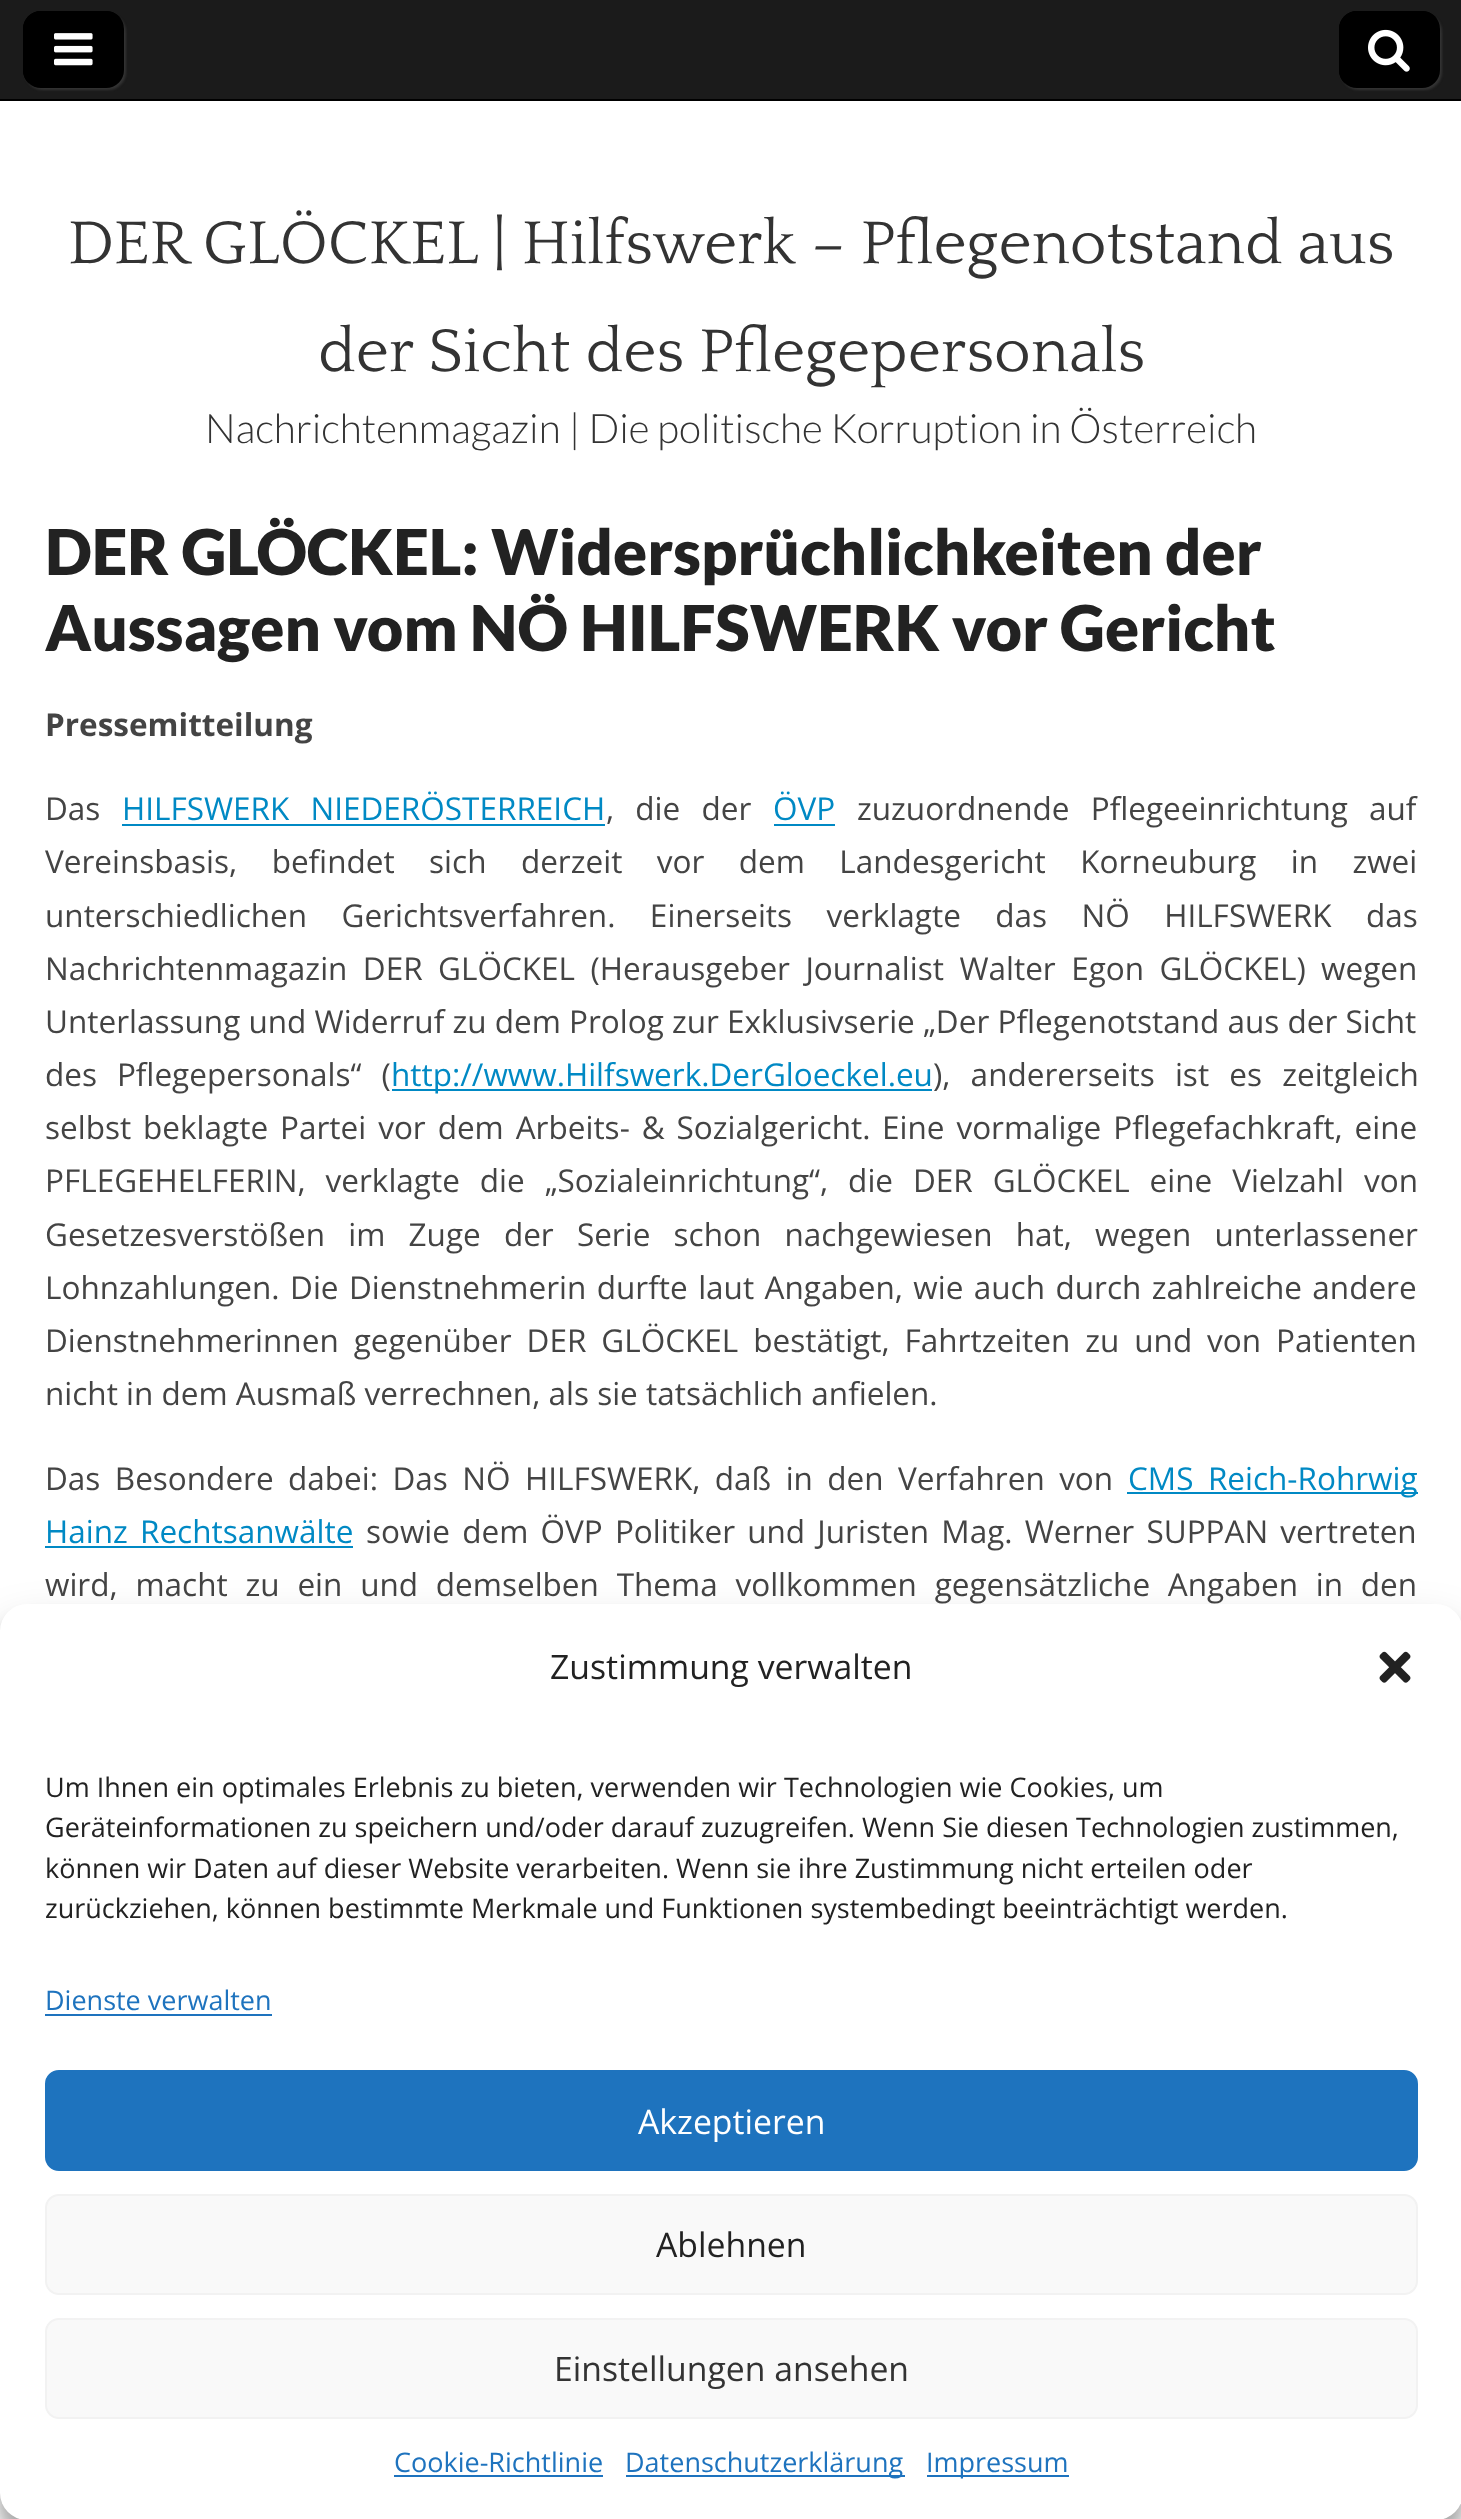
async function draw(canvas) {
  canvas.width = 1461
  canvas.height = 2519
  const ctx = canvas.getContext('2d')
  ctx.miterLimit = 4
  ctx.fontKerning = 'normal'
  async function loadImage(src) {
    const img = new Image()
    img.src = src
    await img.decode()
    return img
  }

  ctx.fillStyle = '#fff'
  ctx.fillRect(0, 0, 1461, 2519)
  ctx.fillStyle = '#1b1b1b'
  ctx.fillRect(0, 0, 1461, 99)
  ctx.fillStyle = '#000'
  ctx.fillRect(0, 99, 1461, 2)
  ctx.fillStyle = '#333'
  ctx.filter = 'blur(1px)'
  ctx.beginPath()
  ctx.roundRect(25, 14, 101, 76, 18)
  ctx.fill()
  ctx.filter = 'none'
  ctx.fillStyle = '#000'
  ctx.beginPath()
  ctx.roundRect(23, 11, 101, 77, 18)
  ctx.fill()
  ctx.beginPath()
  ctx.moveTo(43, 14)
  ctx.lineTo(108, 14)
  ctx.bezierCurveTo(114, 14, 119, 16, 122, 20)
  ctx.bezierCurveTo(119, 15, 113, 11, 106, 11)
  ctx.lineTo(41, 11)
  ctx.bezierCurveTo(31, 11, 23, 19, 23, 29)
  ctx.lineTo(23, 70)
  ctx.bezierCurveTo(23, 75, 25, 80, 29, 84)
  ctx.bezierCurveTo(27, 80, 25, 76, 25, 72)
  ctx.lineTo(25, 32)
  ctx.bezierCurveTo(25, 22, 33, 14, 43, 14)
  ctx.closePath()
  ctx.fill()
  ctx.drawImage(await loadImage('image0.png'), 54, 33, 39, 33)
  ctx.fillStyle = '#333'
  ctx.filter = 'blur(1px)'
  ctx.beginPath()
  ctx.roundRect(1341, 14, 101, 76, 18)
  ctx.fill()
  ctx.filter = 'none'
  ctx.fillStyle = '#000'
  ctx.beginPath()
  ctx.roundRect(1339, 11, 101, 77, 18)
  ctx.fill()
  ctx.beginPath()
  ctx.moveTo(1359, 14)
  ctx.lineTo(1424, 14)
  ctx.bezierCurveTo(1430, 14, 1435, 16, 1438, 20)
  ctx.bezierCurveTo(1435, 15, 1429, 11, 1422, 11)
  ctx.lineTo(1357, 11)
  ctx.bezierCurveTo(1347, 11, 1339, 19, 1339, 29)
  ctx.lineTo(1339, 70)
  ctx.bezierCurveTo(1339, 75, 1341, 80, 1345, 84)
  ctx.bezierCurveTo(1343, 80, 1341, 76, 1341, 72)
  ctx.lineTo(1341, 32)
  ctx.bezierCurveTo(1341, 22, 1349, 14, 1359, 14)
  ctx.closePath()
  ctx.fill()
  ctx.drawImage(await loadImage('image1.png'), 1368, 29, 42, 43)
  ctx.font = '63px Quattrocento'
  ctx.fillStyle = '#333'
  ctx.fillText('DER GLÖCKEL | Hilfswerk – Pflegenotstand aus', 68, 263)
  ctx.fillText('der Sicht des Pflegepersonals', 318, 371)
  ctx.font = '300 40.5px Lato'
  ctx.fillText('Nachrichtenmagazin | Die politische Korruption in Österreich', 205, 443)
  ctx.font = '900 63px Lato'
  ctx.fillStyle = '#222'
  ctx.fillText('DER GLÖCKEL: Widersprüchlichkeiten der', 45, 575)
  ctx.fillText('Aussagen vom NÖ HILFSWERK vor Gericht', 45, 651)
  ctx.font = 'bold 31.5px Open Sans'
  ctx.fillStyle = '#444'
  ctx.fillText('Pressemitteilung', 45, 736)
  ctx.font = '31.5px Open Sans'
  ctx.fillText('Das', 45, 820)
  ctx.wordSpacing = '13px'
  ctx.fillStyle = '#0089c4'
  ctx.fillText('HILFSWERK NIEDERÖSTERREICH', 122, 820)
  ctx.fillRect(122, 824, 483, 2)
  ctx.fillStyle = '#444'
  ctx.fillText(', die der', 606, 820)
  ctx.wordSpacing = '0px'
  ctx.fillStyle = '#0089c4'
  ctx.fillText('ÖVP', 773, 820)
  ctx.fillRect(774, 824, 61, 2)
  ctx.wordSpacing = '13px'
  ctx.fillStyle = '#444'
  ctx.fillText('zuzuordnende Pflegeeinrichtung auf', 857, 820)
  ctx.wordSpacing = '26.25px'
  ctx.fillText('Vereinsbasis, befindet sich derzeit vor dem Landesgericht Korneuburg in zwei', 45, 873)
  ctx.fillText('unterschiedlichen Gerichtsverfahren. Einerseits verklagte das NÖ HILFSWERK das', 45, 927)
  ctx.wordSpacing = '7.25px'
  ctx.fillText('Nachrichtenmagazin DER GLÖCKEL (Herausgeber Journalist Walter Egon GLÖCKEL) wegen', 45, 980)
  ctx.wordSpacing = '0px'
  ctx.fillText('Unterlassung und Widerruf zu dem Prolog zur Exklusivserie „Der Pflegenotstand aus der Sicht', 45, 1033)
  ctx.wordSpacing = '11.75px'
  ctx.fillText('des Pflegepersonals“ (', 45, 1086)
  ctx.fillStyle = '#0089c4'
  ctx.fillRect(392, 1089, 540, 2)
  ctx.wordSpacing = '0px'
  ctx.fillText('http://www.Hilfswerk.DerGloeckel.eu', 391, 1086)
  ctx.wordSpacing = '12px'
  ctx.fillStyle = '#444'
  ctx.fillText('), andererseits ist es zeitgleich', 933, 1086)
  ctx.wordSpacing = '3.75px'
  ctx.fillText('selbst beklagte Partei vor dem Arbeits- & Sozialgericht.', 45, 1139)
  ctx.fillText('Eine vormalige Pflegefachkraft, eine', 882, 1139)
  ctx.wordSpacing = '11.75px'
  ctx.fillText('PFLEGEHELFERIN, verklagte die „Sozialeinrichtung“, die DER GLÖCKEL eine Vielzahl von', 45, 1192)
  ctx.wordSpacing = '15px'
  ctx.fillText('Gesetzesverstößen im Zuge der Serie schon nachgewiesen hat, wegen unterlassener', 45, 1246)
  ctx.wordSpacing = '2.25px'
  ctx.fillText('Lohnzahlungen. Die Dienstnehmerin durfte laut Angaben, wie auch durch zahlreiche andere', 45, 1299)
  ctx.wordSpacing = '6.75px'
  ctx.fillText('Dienstnehmerinnen gegenüber DER GLÖCKEL bestätigt, Fahrtzeiten zu und von Patienten', 45, 1352)
  ctx.wordSpacing = '0px'
  ctx.fillText('nicht in dem Ausmaß verrechnen, als sie tatsächlich anfielen.', 45, 1405)
  ctx.wordSpacing = '6.25px'
  ctx.fillText('Das Besondere dabei: Das NÖ HILFSWERK, daß in den Verfahren von', 45, 1490)
  ctx.fillStyle = '#0089c4'
  ctx.fillRect(1127, 1492, 291, 2)
  ctx.fillText('CMS Reich-Rohrwig', 1128, 1490)
  ctx.wordSpacing = '4px'
  ctx.fillText('Hainz Rechtsanwälte', 45, 1543)
  ctx.fillRect(45, 1546, 308, 2)
  ctx.fillStyle = '#444'
  ctx.fillText('sowie dem ÖVP Politiker und Juristen Mag. Werner SUPPAN vertreten', 366, 1543)
  ctx.wordSpacing = '9.6px'
  ctx.fillText('wird, macht zu ein und demselben Thema vollkommen gegensätzliche Angaben in den', 45, 1596)
  ctx.fillStyle = '#0000003b'
  ctx.filter = 'blur(7px)'
  ctx.beginPath()
  ctx.roundRect(0, 1618, 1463, 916, 27)
  ctx.fill()
  ctx.filter = 'none'
  ctx.fillStyle = '#00000030'
  ctx.filter = 'blur(22.5px)'
  ctx.beginPath()
  ctx.roundRect(0, 1627, 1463, 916, 27)
  ctx.fill()
  ctx.filter = 'none'
  ctx.fillStyle = '#fff'
  ctx.beginPath()
  ctx.roundRect(0, 1604, 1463, 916, 27)
  ctx.fill()
  ctx.wordSpacing = '0px'
  ctx.font = '33.75px Open Sans'
  ctx.fillStyle = '#222'
  ctx.fillText('Zustimmung verwalten', 550, 1679)
  ctx.drawImage(await loadImage('image2.png'), 1379, 1651, 32, 32)
  ctx.font = '27px Open Sans'
  ctx.fillText('Um Ihnen ein optimales Erlebnis zu bieten, verwenden wir Technologien wie Cookies, um', 45, 1797)
  ctx.fillText('Geräteinformationen zu speichern und/oder darauf zuzugreifen. Wenn Sie diesen Technologien zustimmen,', 45, 1837)
  ctx.fillText('können wir Daten auf dieser Website verarbeiten. Wenn sie ihre Zustimmung nicht erteilen oder', 45, 1878)
  ctx.fillText('zurückziehen, können bestimmte Merkmale und Funktionen systembedingt beeinträchtigt werden.', 45, 1918)
  ctx.fillStyle = '#1e73be'
  ctx.fillText('Dienste verwalten', 45, 2010)
  ctx.fillRect(45, 2014, 227, 2)
  ctx.beginPath()
  ctx.roundRect(46, 2071, 1371, 99, 13)
  ctx.fill()
  ctx.strokeStyle = '#1e73be'
  ctx.lineWidth = 2
  ctx.stroke()
  ctx.font = '33.75px Open Sans'
  ctx.fillStyle = '#fff'
  ctx.fillText('Akzeptieren', 638, 2134)
  ctx.fillStyle = '#f9f9f9'
  ctx.beginPath()
  ctx.roundRect(46, 2195, 1371, 99, 13)
  ctx.fill()
  ctx.strokeStyle = '#f2f2f2'
  ctx.stroke()
  ctx.fillStyle = '#222'
  ctx.fillText('Ablehnen', 656, 2257)
  ctx.fillStyle = '#f9f9f9'
  ctx.beginPath()
  ctx.roundRect(46, 2319, 1371, 99, 13)
  ctx.fill()
  ctx.stroke()
  ctx.fillStyle = '#333'
  ctx.fillText('Einstellungen ansehen', 554, 2381)
  ctx.font = '27px Open Sans'
  ctx.fillStyle = '#1e73be'
  ctx.fillText('Cookie-Richtlinie', 394, 2472)
  ctx.fillRect(394, 2475, 209, 2)
  ctx.fillRect(626, 2475, 279, 2)
  ctx.fillText('Datenschutzerklärung', 625, 2472)
  ctx.fillRect(927, 2475, 142, 2)
  ctx.fillText('Impressum', 926, 2472)
}

draw(document.querySelector('canvas'))
